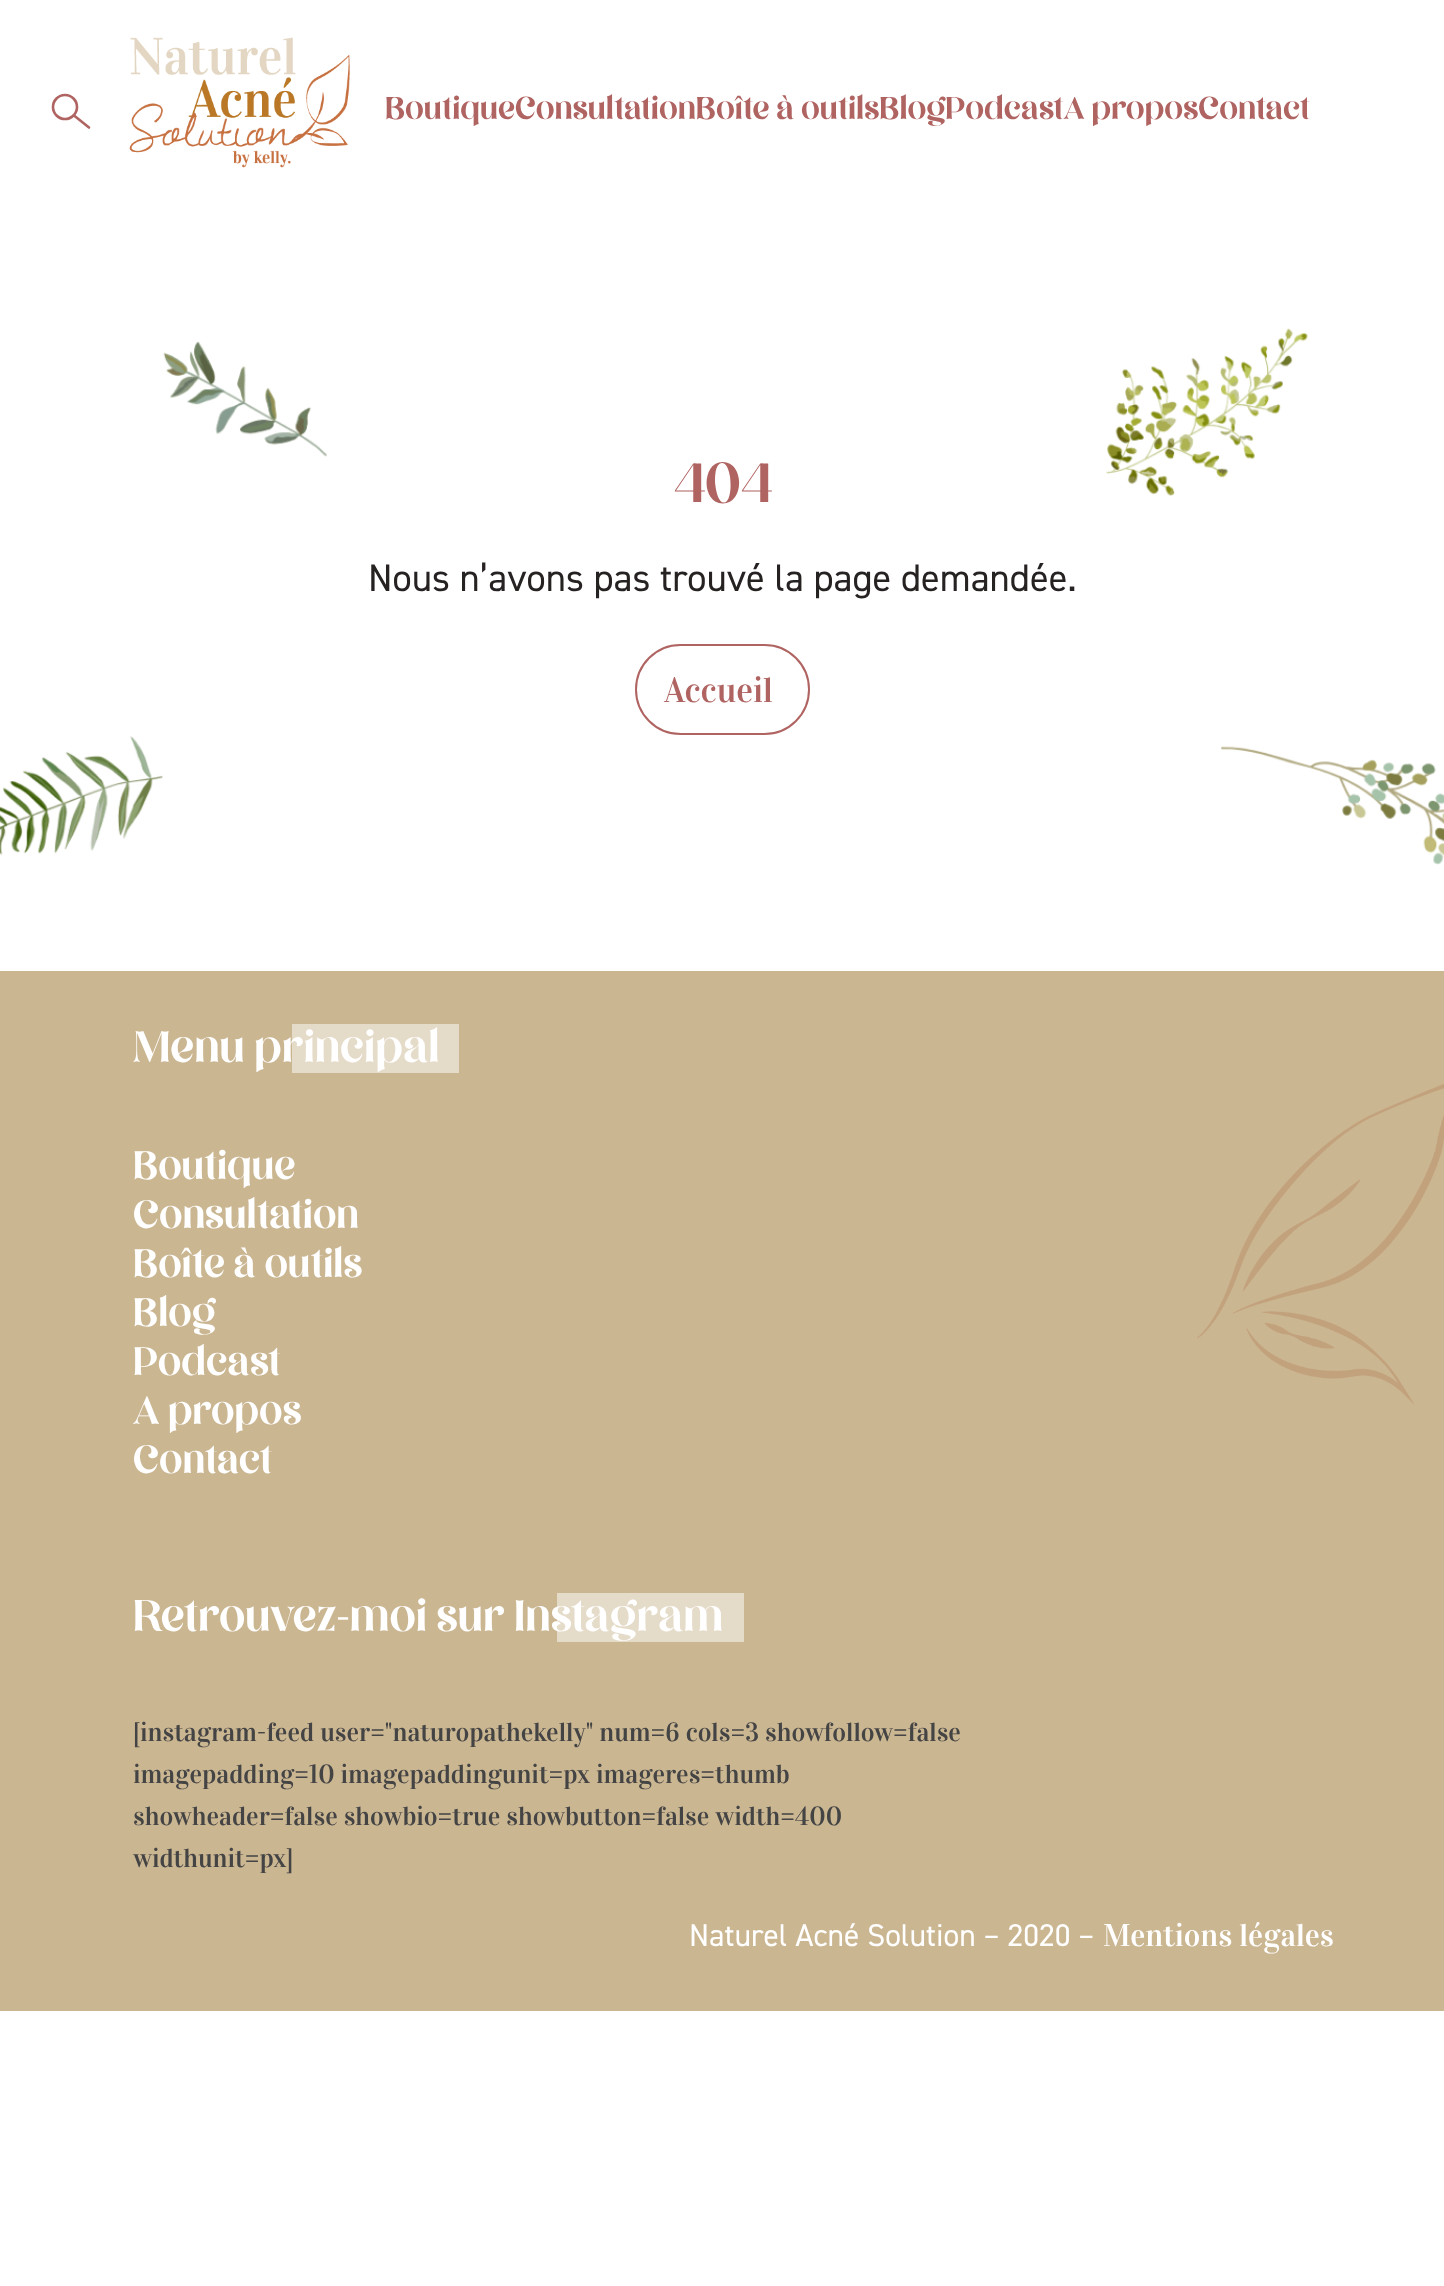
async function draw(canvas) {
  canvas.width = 1444
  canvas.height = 2286
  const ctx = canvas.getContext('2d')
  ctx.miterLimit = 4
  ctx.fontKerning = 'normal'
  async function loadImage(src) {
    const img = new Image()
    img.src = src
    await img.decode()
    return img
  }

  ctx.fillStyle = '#fff'
  ctx.fillRect(0, 0, 1444, 2286)
  ctx.beginPath()
  ctx.arc(65, 107, 12, 0, 2 * Math.PI)
  ctx.strokeStyle = '#b06462'
  ctx.lineWidth = 2.6
  ctx.stroke()
  ctx.beginPath()
  ctx.moveTo(89, 127.5)
  ctx.lineTo(74, 115.5)
  ctx.lineCap = 'round'
  ctx.lineJoin = 'round'
  ctx.stroke()
  ctx.drawImage(await loadImage('image0.png'), 129, 37, 221, 131)
  ctx.font = '35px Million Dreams'
  ctx.fillStyle = '#b06462'
  ctx.fillText('BoutiqueConsultationBoîte à outilsBlogPodcastA proposContact', 385, 119)
  ctx.drawImage(await loadImage('image1.png'), 0, 328, 1444, 537)
  ctx.font = '61px Million Dreams'
  ctx.fillText('404', 674, 502)
  ctx.font = '38.5px "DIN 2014"'
  ctx.fillStyle = '#262221'
  ctx.fillText('Nous n’avons pas trouvé la page demandée.', 368, 591)
  ctx.beginPath()
  ctx.roundRect(636, 645, 173, 89, 44.5)
  ctx.lineWidth = 2
  ctx.lineJoin = 'miter'
  ctx.stroke()
  ctx.font = '35px Vidaloka'
  ctx.fillStyle = '#b06462'
  ctx.fillText('Accueil', 664, 702)
  ctx.fillStyle = '#cbb692'
  ctx.fillRect(0, 971, 1444, 1040)
  ctx.drawImage(await loadImage('image2.png'), 1197, 1084, 247, 321)
  ctx.font = '49px Million Dreams'
  ctx.fillStyle = '#fff'
  ctx.fillText('Menu', 133, 1062)
  ctx.fillStyle = '#e5dbc9'
  ctx.fillRect(292, 1024, 167, 49)
  ctx.fillStyle = '#fff'
  ctx.fillText('principal', 254, 1062)
  ctx.font = '43.75px Million Dreams'
  ctx.fillText('Boutique', 133, 1179)
  ctx.fillText('Consultation', 133, 1228)
  ctx.fillText('Boîte à outils', 133, 1277)
  ctx.fillText('Blog', 133, 1326)
  ctx.fillText('Podcast', 133, 1375)
  ctx.fillText('A propos', 133, 1424)
  ctx.fillText('Contact', 133, 1473)
  ctx.font = '49px Million Dreams'
  ctx.fillText('Retrouvez-moi sur', 133, 1631)
  ctx.fillStyle = '#e5dbc9'
  ctx.fillRect(557, 1593, 187, 49)
  ctx.fillStyle = '#fff'
  ctx.fillText('Instagram', 514, 1631)
  ctx.font = '26.25px Vidaloka'
  ctx.fillStyle = '#444'
  ctx.fillText('[instagram-feed user="naturopathekelly" num=6 cols=3 showfollow=false', 133, 1741)
  ctx.fillText('imagepadding=10 imagepaddingunit=px imageres=thumb', 133, 1783)
  ctx.fillText('showheader=false showbio=true showbutton=false width=400', 133, 1825)
  ctx.fillText('widthunit=px]', 133, 1867)
  ctx.font = '31.5px "DIN 2014"'
  ctx.fillStyle = '#fff'
  ctx.fillText('Naturel Acné Solution – 2020 –', 689, 1946)
  ctx.font = '31.5px Vidaloka'
  ctx.fillText('Mentions légales', 1103, 1946)
}

draw(document.querySelector('canvas'))
